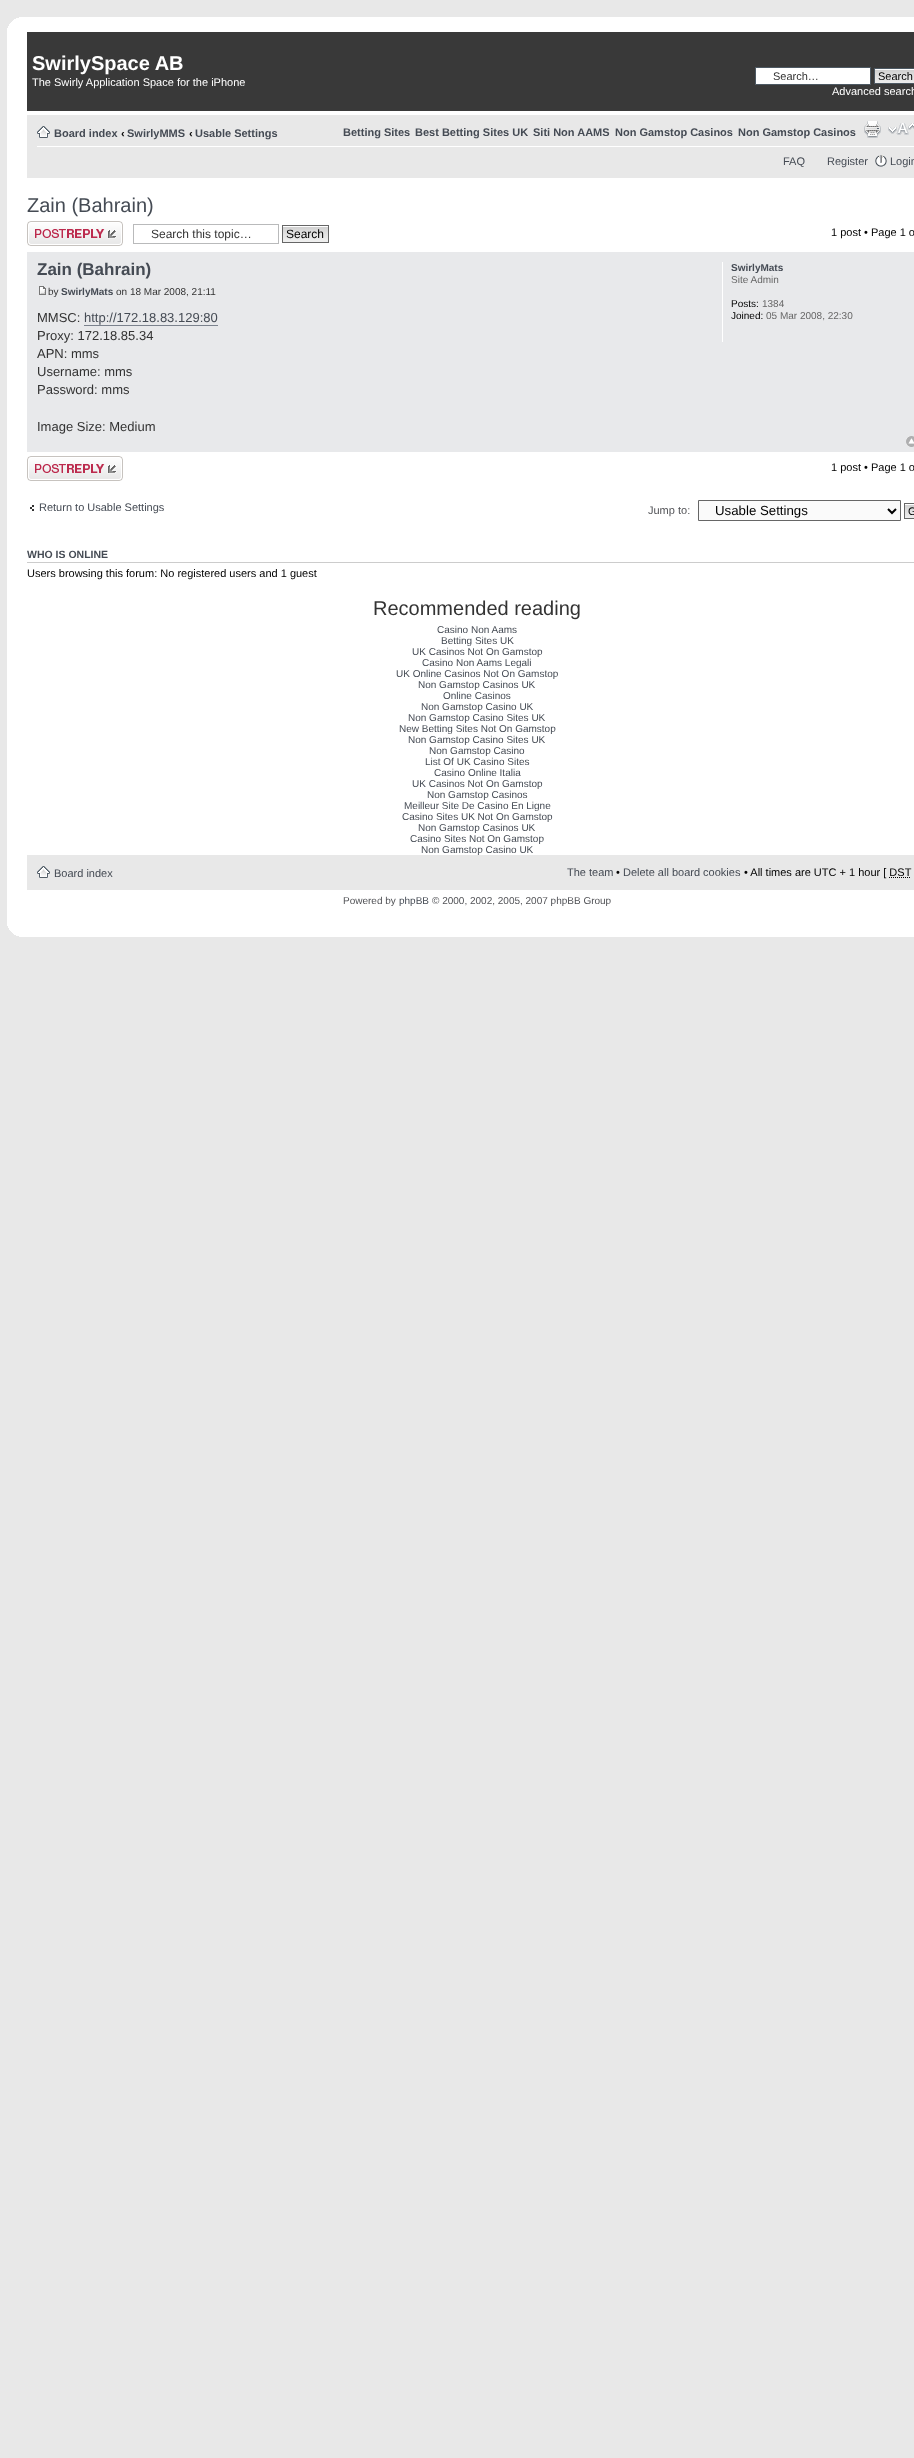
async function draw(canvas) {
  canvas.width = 914
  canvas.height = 2458
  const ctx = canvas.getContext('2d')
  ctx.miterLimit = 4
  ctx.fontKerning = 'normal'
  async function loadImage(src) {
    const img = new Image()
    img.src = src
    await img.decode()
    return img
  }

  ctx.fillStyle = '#e8e8e8'
  ctx.fillRect(0, 0, 914, 2458)
  ctx.drawImage(await loadImage('image0.png'), 7, 17, 14, 15)
  ctx.fillStyle = '#fff'
  ctx.fillRect(21, 17, 893, 15)
  ctx.fillRect(7, 32, 907, 890)
  ctx.fillStyle = '#393939'
  ctx.fillRect(27, 32, 887, 79)
  ctx.font = 'bold 20px Liberation Sans'
  ctx.fillStyle = '#fff'
  ctx.fillText('SwirlySpace AB', 32, 70)
  ctx.font = '11px Liberation Sans'
  ctx.fillText('The Swirly Application Space for the iPhone', 32, 86)
  ctx.beginPath()
  ctx.rect(755.5, 67.5, 115, 17)
  ctx.fill()
  ctx.strokeStyle = '#4d5963'
  ctx.stroke()
  ctx.fillStyle = '#333'
  ctx.fillText('Search…', 773, 80)
  ctx.drawImage(await loadImage('image1.png'), 875, 69, 39, 14)
  ctx.strokeRect(874.5, 68.5, 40, 15)
  ctx.fillStyle = '#000'
  ctx.fillText('Search', 878, 80)
  ctx.fillStyle = '#fff'
  ctx.fillText('Advanced search', 832, 95)
  ctx.fillStyle = '#e8e8e8'
  ctx.fillRect(27, 115, 887, 63)
  ctx.fillStyle = '#fff'
  ctx.fillRect(37, 146, 877, 1)
  ctx.drawImage(await loadImage('image2.png'), 37, 126, 13, 12)
  ctx.font = 'bold 11px Liberation Sans'
  ctx.fillStyle = '#454b54'
  ctx.fillText('Board index', 54, 137)
  ctx.fillStyle = '#000'
  ctx.fillText('‹', 121, 137)
  ctx.fillStyle = '#454b54'
  ctx.fillText('SwirlyMMS', 127, 137)
  ctx.fillStyle = '#000'
  ctx.fillText('‹', 189, 137)
  ctx.fillStyle = '#454b54'
  ctx.fillText('Usable Settings', 195, 137)
  ctx.fillText('Betting Sites', 343, 136)
  ctx.fillText('Best Betting Sites UK', 415, 136)
  ctx.fillText('Siti Non AAMS', 533, 136)
  ctx.fillText('Non Gamstop Casinos', 615, 136)
  ctx.fillText('Non Gamstop Casinos', 738, 136)
  ctx.drawImage(await loadImage('image3.png'), 864, 121, 17, 17)
  ctx.drawImage(await loadImage('image4.png'), 888, 123, 26, 12)
  ctx.font = '11px Liberation Sans'
  ctx.fillText('FAQ', 783, 165)
  ctx.fillText('Register', 827, 165)
  ctx.drawImage(await loadImage('image5.png'), 875, 155, 12, 12)
  ctx.fillText('Login', 890, 165)
  ctx.font = '20px Liberation Sans'
  ctx.fillText('Zain (Bahrain)', 27, 212)
  ctx.drawImage(await loadImage('image6.png'), 27, 221, 96, 25)
  ctx.strokeStyle = '#b9babb'
  ctx.strokeRect(133.5, 224.5, 145, 19)
  ctx.font = '12px Liberation Sans'
  ctx.fillStyle = '#333'
  ctx.fillText('Search this topic…', 151, 238)
  ctx.drawImage(await loadImage('image7.png'), 283, 226, 45, 16)
  ctx.strokeStyle = '#666'
  ctx.strokeRect(282.5, 225.5, 46, 17)
  ctx.fillStyle = '#000'
  ctx.fillText('Search', 286, 238)
  ctx.font = '11px Liberation Sans'
  ctx.fillText('1 post • Page 1 o', 831, 236)
  ctx.fillStyle = '#e8e9eb'
  ctx.fillRect(27, 252, 887, 200)
  ctx.font = 'bold 17px Liberation Sans'
  ctx.fillStyle = '#454b54'
  ctx.fillText('Zain (Bahrain)', 37, 275)
  ctx.drawImage(await loadImage('image8.png'), 39, 286, 7, 9)
  ctx.font = '10px Liberation Sans'
  ctx.fillStyle = '#333'
  ctx.fillText('by', 48, 295)
  ctx.font = 'bold 10px Liberation Sans'
  ctx.fillStyle = '#454b54'
  ctx.fillText('SwirlyMats', 61, 295)
  ctx.font = '10px Liberation Sans'
  ctx.fillStyle = '#333'
  ctx.fillText('on 18 Mar 2008, 21:11', 116, 295)
  ctx.font = '13px Liberation Sans'
  ctx.fillText('MMSC:', 37, 322)
  ctx.fillStyle = '#454b54'
  ctx.fillText('http://172.18.83.129:80', 84, 322)
  ctx.fillStyle = '#7b828d'
  ctx.fillRect(84, 325, 134, 1)
  ctx.fillStyle = '#333'
  ctx.fillText('Proxy: 172.18.85.34', 37, 340)
  ctx.fillText('APN: mms', 37, 358)
  ctx.fillText('Username: mms', 37, 376)
  ctx.fillText('Password: mms', 37, 394)
  ctx.fillText('Image Size: Medium', 37, 431)
  ctx.fillStyle = '#fff'
  ctx.fillRect(722, 262, 1, 80)
  ctx.font = 'bold 10px Liberation Sans'
  ctx.fillStyle = '#454b54'
  ctx.fillText('SwirlyMats', 731, 271)
  ctx.font = '10px Liberation Sans'
  ctx.fillStyle = '#666'
  ctx.fillText('Site Admin', 731, 283)
  ctx.fillStyle = '#000'
  ctx.fillText('Posts:', 731, 307)
  ctx.fillStyle = '#666'
  ctx.fillText('1384', 762, 307)
  ctx.fillStyle = '#000'
  ctx.fillText('Joined:', 731, 319)
  ctx.fillStyle = '#666'
  ctx.fillText('05 Mar 2008, 22:30', 766, 319)
  ctx.drawImage(await loadImage('image9.png'), 906, 436, 8, 11)
  ctx.drawImage(await loadImage('image6.png'), 27, 456, 96, 25)
  ctx.font = '11px Liberation Sans'
  ctx.fillStyle = '#000'
  ctx.fillText('1 post • Page 1 o', 831, 471)
  ctx.drawImage(await loadImage('image10.png'), 30, 505, 4, 6)
  ctx.fillStyle = '#454b54'
  ctx.fillText('Return to Usable Settings', 39, 511)
  ctx.fillStyle = '#525357'
  ctx.fillText('Jump to:', 648, 514)
  ctx.fillStyle = '#fafafa'
  ctx.beginPath()
  ctx.rect(698.5, 500.5, 202, 20)
  ctx.fill()
  ctx.stroke()
  ctx.beginPath()
  ctx.moveTo(888, 509)
  ctx.lineTo(892, 513)
  ctx.lineTo(896, 509)
  ctx.strokeStyle = '#000'
  ctx.lineWidth = 2
  ctx.stroke()
  ctx.font = '13.25px Liberation Sans'
  ctx.fillStyle = '#000'
  ctx.fillText('Usable Settings', 715, 515)
  ctx.drawImage(await loadImage('image11.png'), 905, 504, 9, 14)
  ctx.strokeStyle = '#666'
  ctx.lineWidth = 1
  ctx.strokeRect(904.5, 503.5, 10, 15)
  ctx.font = '11px Liberation Sans'
  ctx.fillText('G', 908, 515)
  ctx.fillStyle = '#ccc'
  ctx.fillRect(27, 562, 887, 1)
  ctx.font = 'bold 10.5px Liberation Sans'
  ctx.fillStyle = '#454b54'
  ctx.fillText('WHO IS ONLINE', 27, 558)
  ctx.font = '11px Liberation Sans'
  ctx.fillStyle = '#000'
  ctx.fillText('Users browsing this forum: No registered users and 1 guest', 27, 577)
  ctx.font = '20px Liberation Sans'
  ctx.fillStyle = '#333'
  ctx.fillText('Recommended reading', 373, 615)
  ctx.font = '10px Liberation Sans'
  ctx.fillStyle = '#454b54'
  ctx.fillText('Casino Non Aams', 437, 633)
  ctx.fillText('Betting Sites UK', 441, 644)
  ctx.fillText('UK Casinos Not On Gamstop', 412, 655)
  ctx.fillText('Casino Non Aams Legali', 422, 666)
  ctx.fillText('UK Online Casinos Not On Gamstop', 396, 677)
  ctx.fillText('Non Gamstop Casinos UK', 418, 688)
  ctx.fillText('Online Casinos', 443, 699)
  ctx.fillText('Non Gamstop Casino UK', 421, 710)
  ctx.fillText('Non Gamstop Casino Sites UK', 408, 721)
  ctx.fillText('New Betting Sites Not On Gamstop', 399, 732)
  ctx.fillText('Non Gamstop Casino Sites UK', 408, 743)
  ctx.fillText('Non Gamstop Casino', 429, 754)
  ctx.fillText('List Of UK Casino Sites', 425, 765)
  ctx.fillText('Casino Online Italia', 434, 776)
  ctx.fillText('UK Casinos Not On Gamstop', 412, 787)
  ctx.fillText('Non Gamstop Casinos', 427, 798)
  ctx.fillText('Meilleur Site De Casino En Ligne', 404, 809)
  ctx.fillText('Casino Sites UK Not On Gamstop', 402, 820)
  ctx.fillText('Non Gamstop Casinos UK', 418, 831)
  ctx.fillText('Casino Sites Not On Gamstop', 410, 842)
  ctx.fillStyle = '#e8e8e8'
  ctx.fillRect(27, 855, 887, 35)
  ctx.fillStyle = '#454b54'
  ctx.fillText('Non Gamstop Casino UK', 421, 853)
  ctx.drawImage(await loadImage('image2.png'), 37, 866, 13, 12)
  ctx.font = '11px Liberation Sans'
  ctx.fillText('Board index', 54, 877)
  ctx.fillText('The team', 567, 876)
  ctx.fillStyle = '#000'
  ctx.fillText('•', 616, 876)
  ctx.fillStyle = '#454b54'
  ctx.fillText('Delete all board cookies', 623, 876)
  ctx.fillStyle = '#000'
  ctx.fillText('• All times are UTC + 1 hour [ DST', 744, 876)
  ctx.beginPath()
  ctx.moveTo(889, 877.5)
  ctx.lineTo(911, 877.5)
  ctx.strokeStyle = '#000'
  ctx.setLineDash([1, 1])
  ctx.stroke()
  ctx.font = '10px Liberation Sans'
  ctx.fillStyle = '#525357'
  ctx.fillText('Powered by', 343, 904)
  ctx.fillStyle = '#454b54'
  ctx.fillText('phpBB', 399, 904)
  ctx.fillStyle = '#525357'
  ctx.fillText('© 2000, 2002, 2005, 2007 phpBB Group', 432, 904)
  ctx.drawImage(await loadImage('image12.png'), 7, 922, 14, 15)
  ctx.fillStyle = '#fff'
  ctx.fillRect(21, 922, 893, 15)
}

draw(document.querySelector('canvas'))
